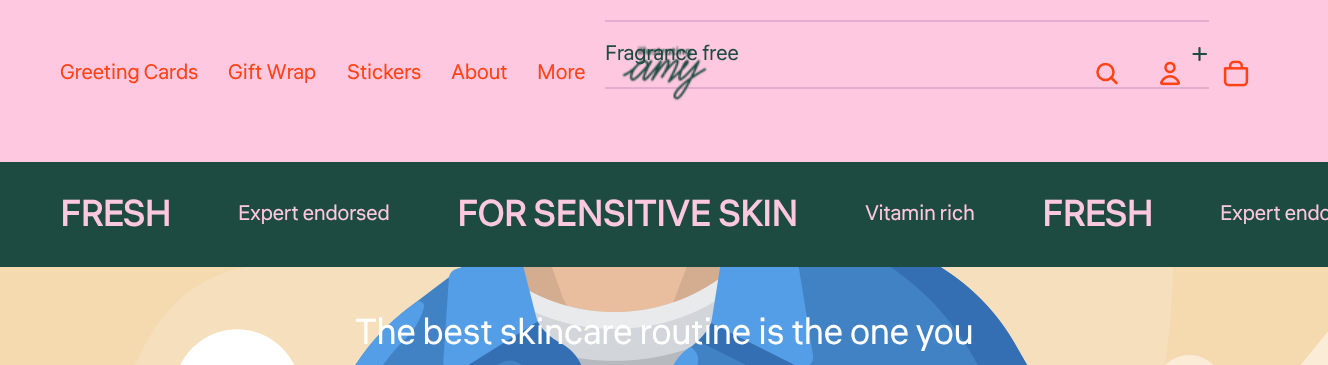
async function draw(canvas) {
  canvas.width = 1328
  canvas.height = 365
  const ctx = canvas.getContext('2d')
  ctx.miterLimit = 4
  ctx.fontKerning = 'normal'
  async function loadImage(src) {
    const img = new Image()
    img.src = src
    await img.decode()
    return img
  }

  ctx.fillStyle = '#ffc8e1'
  ctx.fillRect(0, 0, 1328, 365)
  ctx.fillStyle = '#e4add0'
  ctx.fillRect(605, 20, 604, 2)
  ctx.fillRect(605, 87, 604, 2)
  ctx.font = '21px Liter'
  ctx.fillStyle = '#1e4b41'
  ctx.fillText('Fragrance free', 605, 60)
  ctx.beginPath()
  ctx.moveTo(1193.5, 54)
  ctx.lineTo(1206, 54)
  ctx.moveTo(1199.5, 48)
  ctx.lineTo(1199.5, 60)
  ctx.strokeStyle = '#1e4b41'
  ctx.lineWidth = 2.2
  ctx.lineCap = 'round'
  ctx.stroke()
  ctx.fillRect(0, 162, 1328, 105)
  ctx.font = 'bold 36px Liter'
  ctx.fillStyle = '#ffc8e1'
  ctx.fillText('FRESH', 60, 226)
  ctx.font = '21px Liter'
  ctx.fillText('Expert endorsed', 238, 220)
  ctx.font = 'bold 36px Liter'
  ctx.fillText('FOR SENSITIVE SKIN', 457, 226)
  ctx.font = '21px Liter'
  ctx.fillText('Vitamin rich', 865, 220)
  ctx.font = 'bold 36px Liter'
  ctx.fillText('FRESH', 1042, 226)
  ctx.font = '21px Liter'
  ctx.fillText('Expert endo', 1220, 220)
  ctx.drawImage(await loadImage('image0.png'), 0, 267, 1328, 98)
  ctx.font = '36px Liter'
  ctx.fillStyle = '#fff'
  ctx.fillText('The best skincare routine is the one you', 355, 344)
  ctx.font = '21px Liter'
  ctx.fillStyle = '#ff4315'
  ctx.fillText('Greeting Cards', 60, 79)
  ctx.fillText('Gift Wrap', 228, 79)
  ctx.fillText('Stickers', 347, 79)
  ctx.fillText('About', 451, 79)
  ctx.fillText('More', 537, 79)
  ctx.drawImage(await loadImage('image1.png'), 622, 45, 85, 56)
  ctx.beginPath()
  ctx.arc(1105.5, 72, 8, 0, 2 * Math.PI)
  ctx.strokeStyle = '#ff4315'
  ctx.lineWidth = 2.5
  ctx.stroke()
  ctx.beginPath()
  ctx.moveTo(1111, 77.5)
  ctx.lineTo(1116.5, 83)
  ctx.lineJoin = 'round'
  ctx.stroke()
  ctx.drawImage(await loadImage('image2.png'), 1160, 61, 20, 25)
  ctx.drawImage(await loadImage('image3.png'), 1223, 60, 26, 27)
}

draw(document.querySelector('canvas'))
